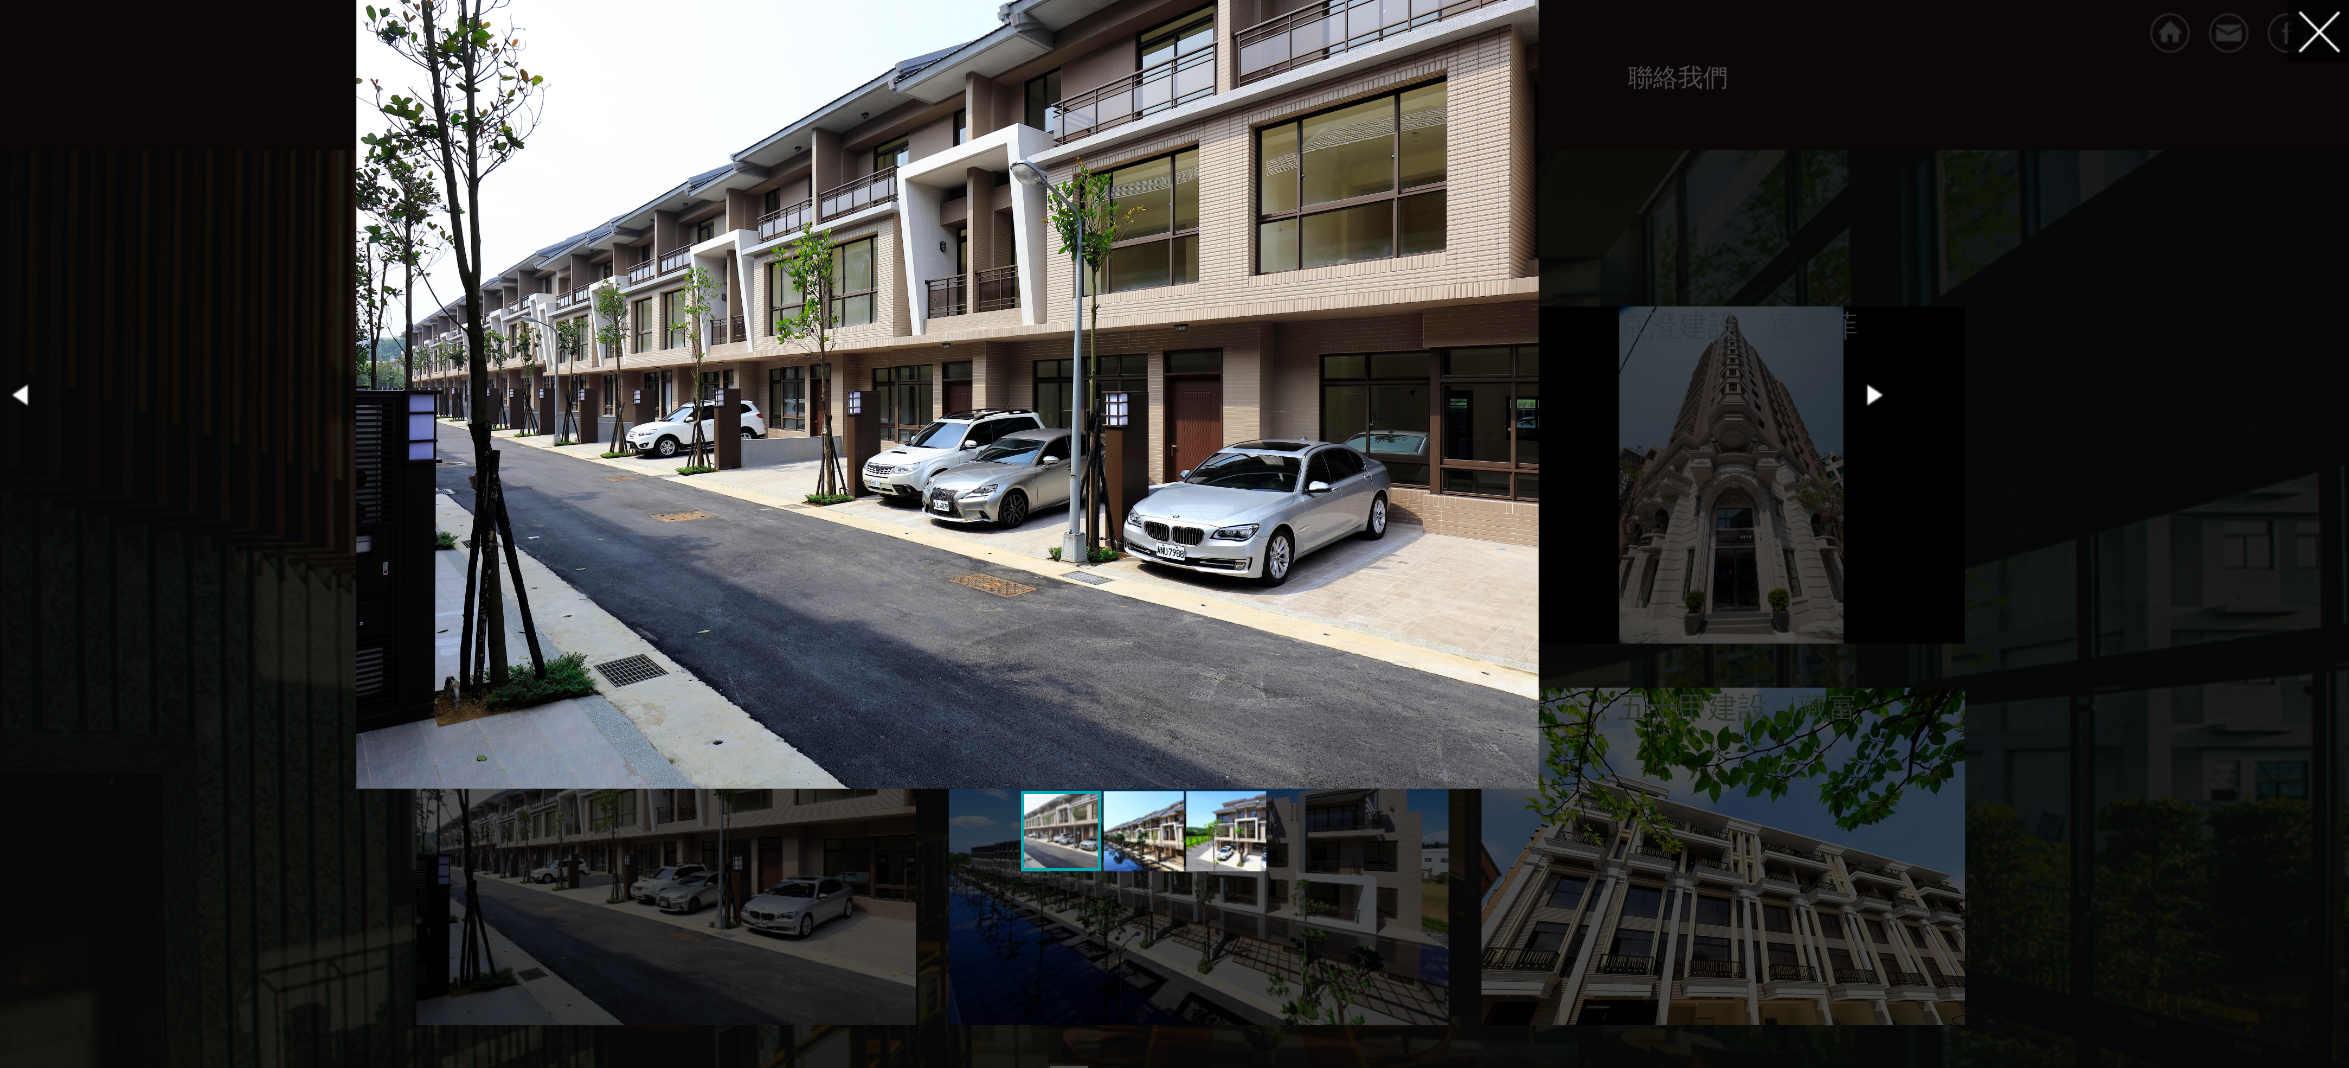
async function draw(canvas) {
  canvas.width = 2349
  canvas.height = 1068
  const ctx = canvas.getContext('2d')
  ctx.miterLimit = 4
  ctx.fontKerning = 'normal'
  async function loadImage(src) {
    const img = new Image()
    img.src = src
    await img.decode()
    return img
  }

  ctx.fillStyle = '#fff'
  ctx.fillRect(0, 0, 2349, 1068)
  ctx.drawImage(await loadImage('image10.png'), 0, 150, 2349, 918)
  ctx.drawImage(await loadImage('image0.png'), 11, 383, 19, 24)
  ctx.fillStyle = '#0b0706'
  ctx.fillRect(0, 0, 2349, 150)
  ctx.drawImage(await loadImage('image11.png'), 1538, 306, 427, 338)
  ctx.drawImage(await loadImage('image12.png'), 1481, 687, 484, 338)
  ctx.drawImage(await loadImage('image13.png'), 416, 788, 501, 237)
  ctx.drawImage(await loadImage('image14.png'), 948, 788, 501, 237)
  ctx.drawImage(await loadImage('image1.png'), 356, 0, 1183, 789)
  ctx.drawImage(await loadImage('image2.png'), 1865, 383, 19, 24)
  ctx.drawImage(await loadImage('image3.png'), 1021, 791, 81, 81)
  ctx.strokeStyle = '#00a8b0'
  ctx.lineWidth = 3
  ctx.strokeRect(1022.5, 792.5, 77, 77)
  ctx.fillStyle = '#7f7f7f33'
  ctx.fillRect(1104, 791, 80, 80)
  ctx.drawImage(await loadImage('image4.png'), 1103, 791, 81, 81)
  ctx.fillRect(1186, 791, 80, 80)
  ctx.drawImage(await loadImage('image5.png'), 1186, 791, 81, 81)
  ctx.drawImage(await loadImage('image9.png'), 2267, 12, 41, 41)
  ctx.drawImage(await loadImage('image6.png'), 2287, 0, 62, 62)
  ctx.drawImage(await loadImage('image7.png'), 2150, 12, 40, 41)
  ctx.drawImage(await loadImage('image8.png'), 2208, 12, 41, 41)
  ctx.font = '500 25px WenQuanYi Zen Hei'
  ctx.fillStyle = '#4d4d4d'
  ctx.fillText('聯絡我們', 1628, 86)
  ctx.font = '500 30px WenQuanYi Zen Hei'
  ctx.fillStyle = '#333a3f'
  ctx.fillText('京澄建設　達爾菲', 1618, 336)
  ctx.fillStyle = '#29332a'
  ctx.fillText('五十甲建設　藏富', 1618, 718)
  ctx.fillStyle = '#4d4d4d'
  ctx.fillRect(1050, 1066, 38, 2)
}

draw(document.querySelector('canvas'))
